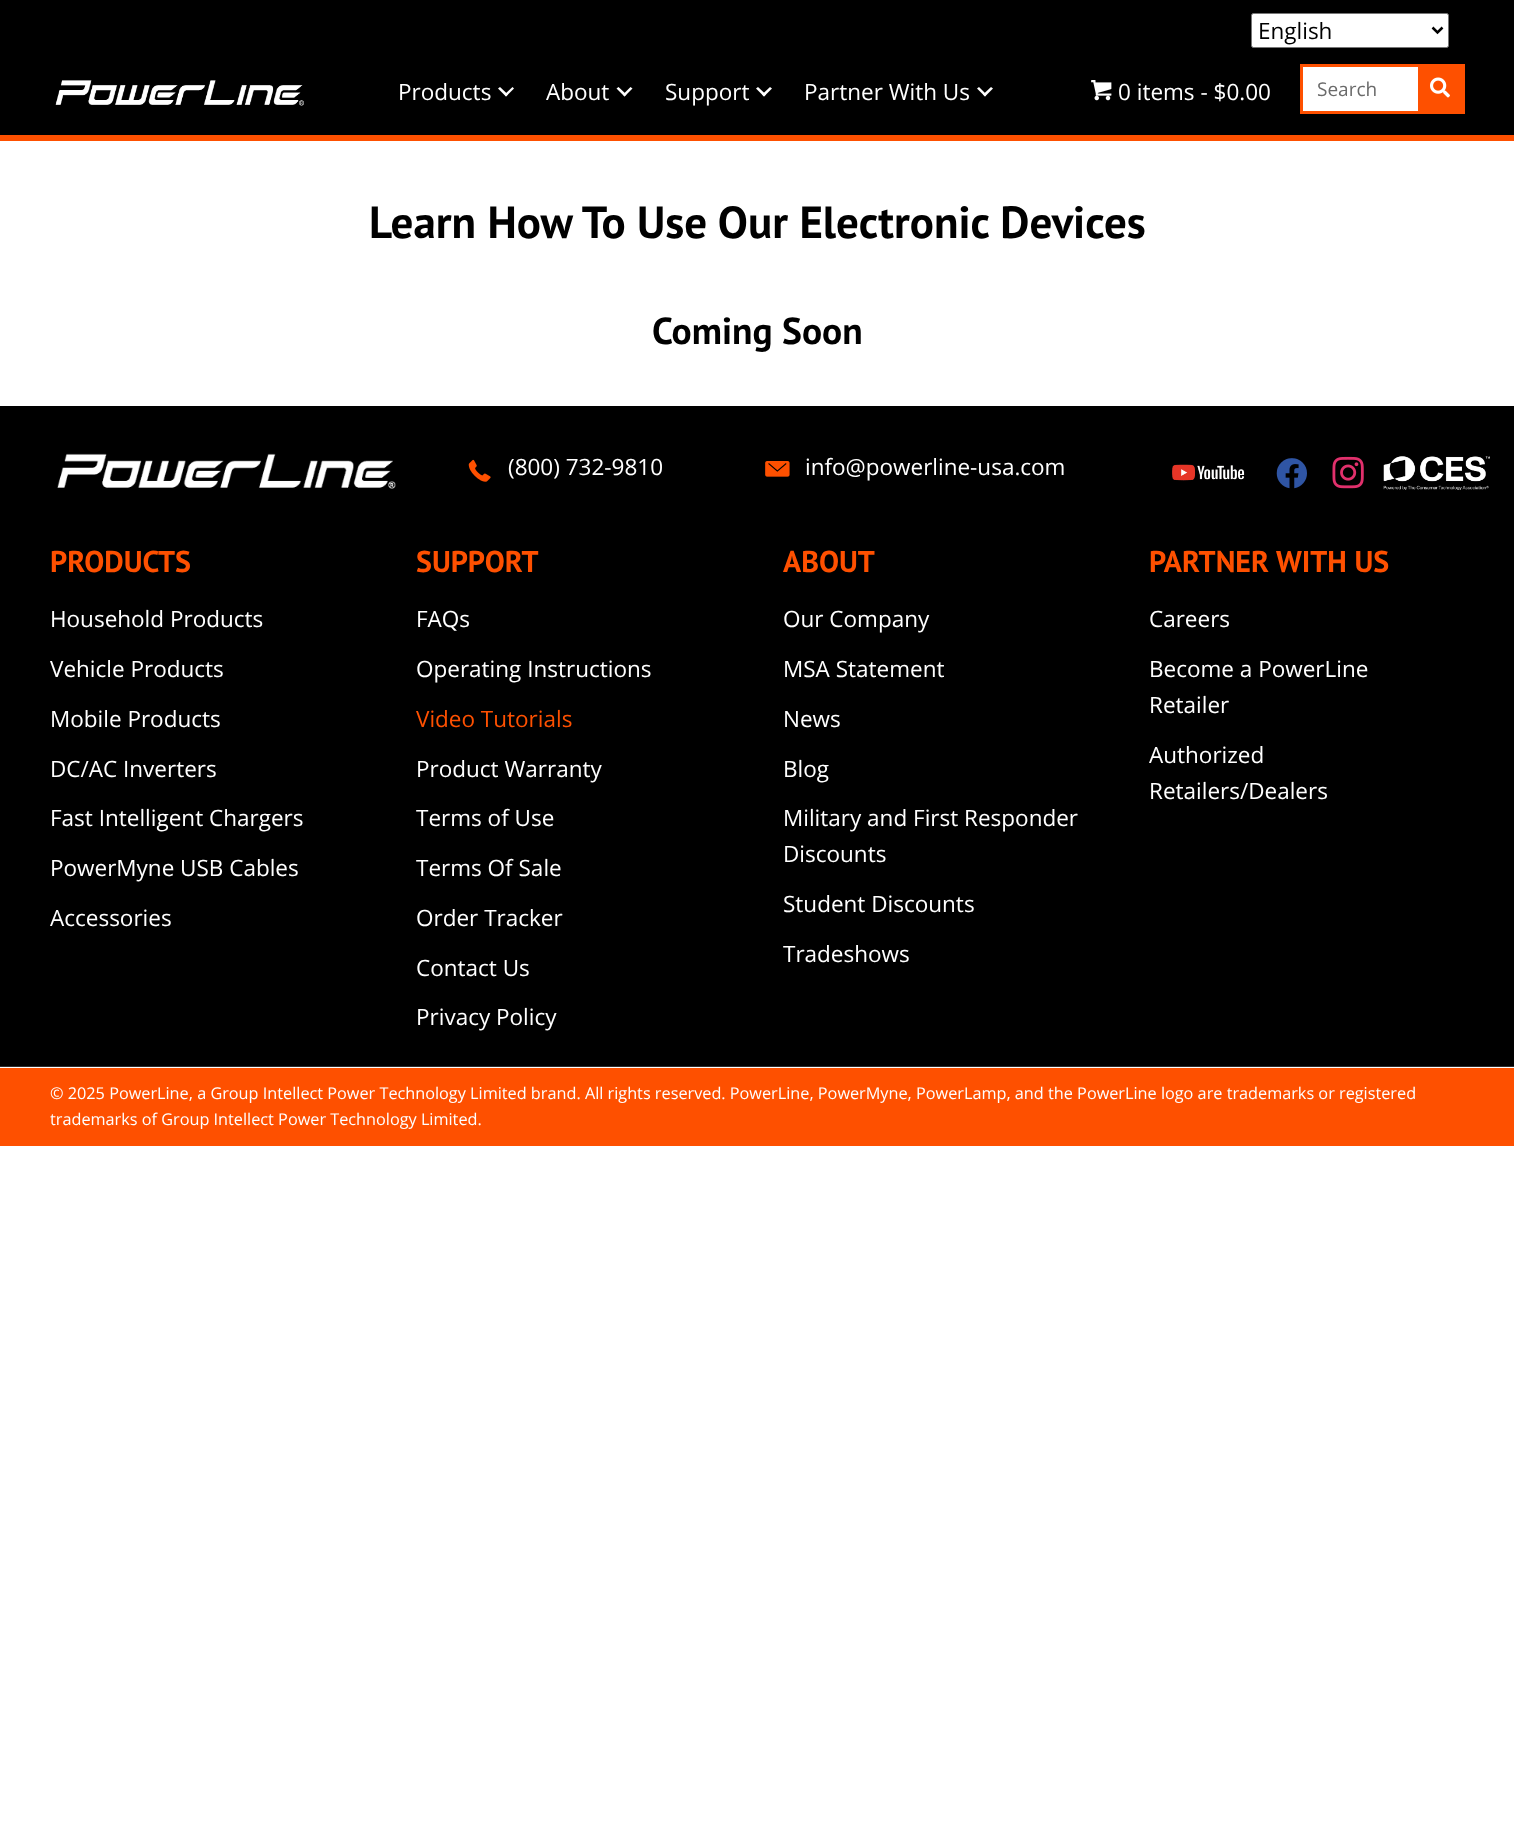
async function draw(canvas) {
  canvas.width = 1514
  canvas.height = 1827
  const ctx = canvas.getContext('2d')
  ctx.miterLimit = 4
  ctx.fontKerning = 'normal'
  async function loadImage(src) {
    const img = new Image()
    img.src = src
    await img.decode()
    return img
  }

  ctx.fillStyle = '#fff'
  ctx.fillRect(0, 0, 1514, 1827)
  ctx.fillStyle = '#000'
  ctx.fillRect(0, 0, 1514, 135)
  ctx.fillStyle = '#fe5000'
  ctx.fillRect(0, 135, 1514, 6)
  ctx.fillStyle = '#fff'
  ctx.beginPath()
  ctx.roundRect(1251.5, 13.5, 197, 34, 2)
  ctx.fill()
  ctx.strokeStyle = '#767676'
  ctx.stroke()
  ctx.beginPath()
  ctx.moveTo(1432.5, 27.5)
  ctx.lineTo(1437.5, 32.5)
  ctx.lineTo(1442.5, 27.5)
  ctx.strokeStyle = '#000'
  ctx.lineWidth = 2.5
  ctx.stroke()
  ctx.font = '22.5px Open Sans'
  ctx.fillStyle = '#000'
  ctx.fillText('English', 1258, 39)
  ctx.drawImage(await loadImage('image0.png'), 55, 80, 249, 26)
  ctx.fillStyle = '#fff'
  ctx.fillText('Products', 398, 100)
  ctx.beginPath()
  ctx.moveTo(512.5, 87)
  ctx.lineTo(514, 88.5)
  ctx.lineTo(506, 96.5)
  ctx.lineTo(504.5, 94.5)
  ctx.closePath()
  ctx.fill()
  ctx.beginPath()
  ctx.moveTo(500, 87)
  ctx.lineTo(508, 94.5)
  ctx.lineTo(506, 96.5)
  ctx.lineTo(498, 88.5)
  ctx.closePath()
  ctx.fill()
  ctx.fillText('About', 546, 100)
  ctx.beginPath()
  ctx.moveTo(630.5, 87)
  ctx.lineTo(632.5, 88.5)
  ctx.lineTo(624.5, 96.5)
  ctx.lineTo(623, 94.5)
  ctx.closePath()
  ctx.fill()
  ctx.beginPath()
  ctx.moveTo(618.5, 87)
  ctx.lineTo(626.5, 94.5)
  ctx.lineTo(624.5, 96.5)
  ctx.lineTo(616.5, 88.5)
  ctx.closePath()
  ctx.fill()
  ctx.fillText('Support', 665, 100)
  ctx.beginPath()
  ctx.moveTo(770, 87)
  ctx.lineTo(772, 88.5)
  ctx.lineTo(764, 96.5)
  ctx.lineTo(762, 94.5)
  ctx.closePath()
  ctx.fill()
  ctx.beginPath()
  ctx.moveTo(758, 87)
  ctx.lineTo(766, 94.5)
  ctx.lineTo(764, 96.5)
  ctx.lineTo(756, 88.5)
  ctx.closePath()
  ctx.fill()
  ctx.fillText('Partner With Us', 804, 100)
  ctx.beginPath()
  ctx.moveTo(991, 87)
  ctx.lineTo(993, 88.5)
  ctx.lineTo(985, 96.5)
  ctx.lineTo(983, 94.5)
  ctx.closePath()
  ctx.fill()
  ctx.beginPath()
  ctx.moveTo(979, 87)
  ctx.lineTo(986.5, 94.5)
  ctx.lineTo(985, 96.5)
  ctx.lineTo(977, 88.5)
  ctx.closePath()
  ctx.fill()
  ctx.drawImage(await loadImage('image1.png'), 1091, 80, 21, 21)
  ctx.fillText('0 items - $0.00', 1118, 100)
  ctx.fillRect(1303, 67, 115, 44)
  ctx.strokeStyle = '#fe5000'
  ctx.lineWidth = 3
  ctx.strokeRect(1301.5, 65.5, 162, 47)
  ctx.font = '19px Open Sans'
  ctx.fillStyle = '#6a6a6a'
  ctx.fillText('Search', 1317, 96)
  ctx.fillStyle = '#fe5000'
  ctx.fillRect(1418, 67, 44, 44)
  ctx.drawImage(await loadImage('image2.png'), 1430, 77, 20, 21)
  ctx.font = 'bold 45px PT Sans'
  ctx.fillStyle = '#000'
  ctx.fillText('Learn How To Use Our Electronic Devices', 369, 238)
  ctx.font = 'bold 37.5px PT Sans'
  ctx.fillText('Coming Soon', 652, 344)
  ctx.fillRect(0, 406, 1514, 660)
  ctx.drawImage(await loadImage('image3.png'), 57, 453, 339, 36)
  ctx.drawImage(await loadImage('image4.png'), 468, 459, 23, 23)
  ctx.font = '22.5px Open Sans'
  ctx.fillStyle = '#fff'
  ctx.fillText('(800) 732-9810', 508, 475)
  ctx.drawImage(await loadImage('image5.png'), 765, 461, 25, 16)
  ctx.fillText('info@powerline-usa.com', 805, 475)
  ctx.drawImage(await loadImage('image6.png'), 1172, 464, 73, 17)
  ctx.drawImage(await loadImage('image7.png'), 1276, 458, 31, 31)
  ctx.drawImage(await loadImage('image8.png'), 1332, 456, 32, 33)
  ctx.drawImage(await loadImage('image9.png'), 1383, 456, 107, 34)
  ctx.font = 'bold 30px PT Sans'
  ctx.fillStyle = '#fe5000'
  ctx.fillText('PRODUCTS', 50, 572)
  ctx.font = '22.5px Open Sans'
  ctx.fillStyle = '#fff'
  ctx.fillText('Household Products', 50, 627)
  ctx.fillText('Vehicle Products', 50, 677)
  ctx.fillText('Mobile Products', 50, 727)
  ctx.fillText('DC/AC Inverters', 50, 777)
  ctx.fillText('Fast Intelligent Chargers', 50, 826)
  ctx.fillText('PowerMyne USB Cables', 50, 876)
  ctx.fillText('Accessories', 50, 926)
  ctx.font = 'bold 30px PT Sans'
  ctx.fillStyle = '#fe5000'
  ctx.fillText('SUPPORT', 416, 572)
  ctx.font = '22.5px Open Sans'
  ctx.fillStyle = '#fff'
  ctx.fillText('FAQs', 416, 627)
  ctx.fillText('Operating Instructions', 416, 677)
  ctx.fillStyle = '#fe5000'
  ctx.fillText('Video Tutorials', 416, 727)
  ctx.fillStyle = '#fff'
  ctx.fillText('Product Warranty', 416, 777)
  ctx.fillText('Terms of Use', 416, 826)
  ctx.fillText('Terms Of Sale', 416, 876)
  ctx.fillText('Order Tracker', 416, 926)
  ctx.fillText('Contact Us', 416, 976)
  ctx.fillText('Privacy Policy', 416, 1025)
  ctx.font = 'bold 30px PT Sans'
  ctx.fillStyle = '#fe5000'
  ctx.fillText('ABOUT', 783, 572)
  ctx.font = '22.5px Open Sans'
  ctx.fillStyle = '#fff'
  ctx.fillText('Our Company', 783, 627)
  ctx.fillText('MSA Statement', 783, 677)
  ctx.fillText('News', 783, 727)
  ctx.fillText('Blog', 783, 777)
  ctx.fillText('Military and First Responder', 783, 826)
  ctx.fillText('Discounts', 783, 862)
  ctx.fillText('Student Discounts', 783, 912)
  ctx.fillText('Tradeshows', 783, 962)
  ctx.font = 'bold 30px PT Sans'
  ctx.fillStyle = '#fe5000'
  ctx.fillText('PARTNER WITH US', 1149, 572)
  ctx.font = '22.5px Open Sans'
  ctx.fillStyle = '#fff'
  ctx.fillText('Careers', 1149, 627)
  ctx.fillText('Become a PowerLine', 1149, 677)
  ctx.fillText('Retailer', 1149, 713)
  ctx.fillText('Authorized', 1149, 763)
  ctx.fillText('Retailers/Dealers', 1149, 799)
  ctx.fillStyle = '#fe5000'
  ctx.fillRect(0, 1068, 1514, 78)
  ctx.fillStyle = '#2d2d2d'
  ctx.fillRect(0, 1066, 1514, 1)
  ctx.font = '16.25px Open Sans'
  ctx.fillStyle = '#fff'
  ctx.fillText('© 2025 PowerLine, a Group Intellect Power Technology Limited brand. All rights reserved. PowerLine, PowerMyne, PowerLamp, and the PowerLine logo are trademarks or registered', 50, 1099)
  ctx.fillText('trademarks of Group Intellect Power Technology Limited.', 50, 1125)
}

draw(document.querySelector('canvas'))
